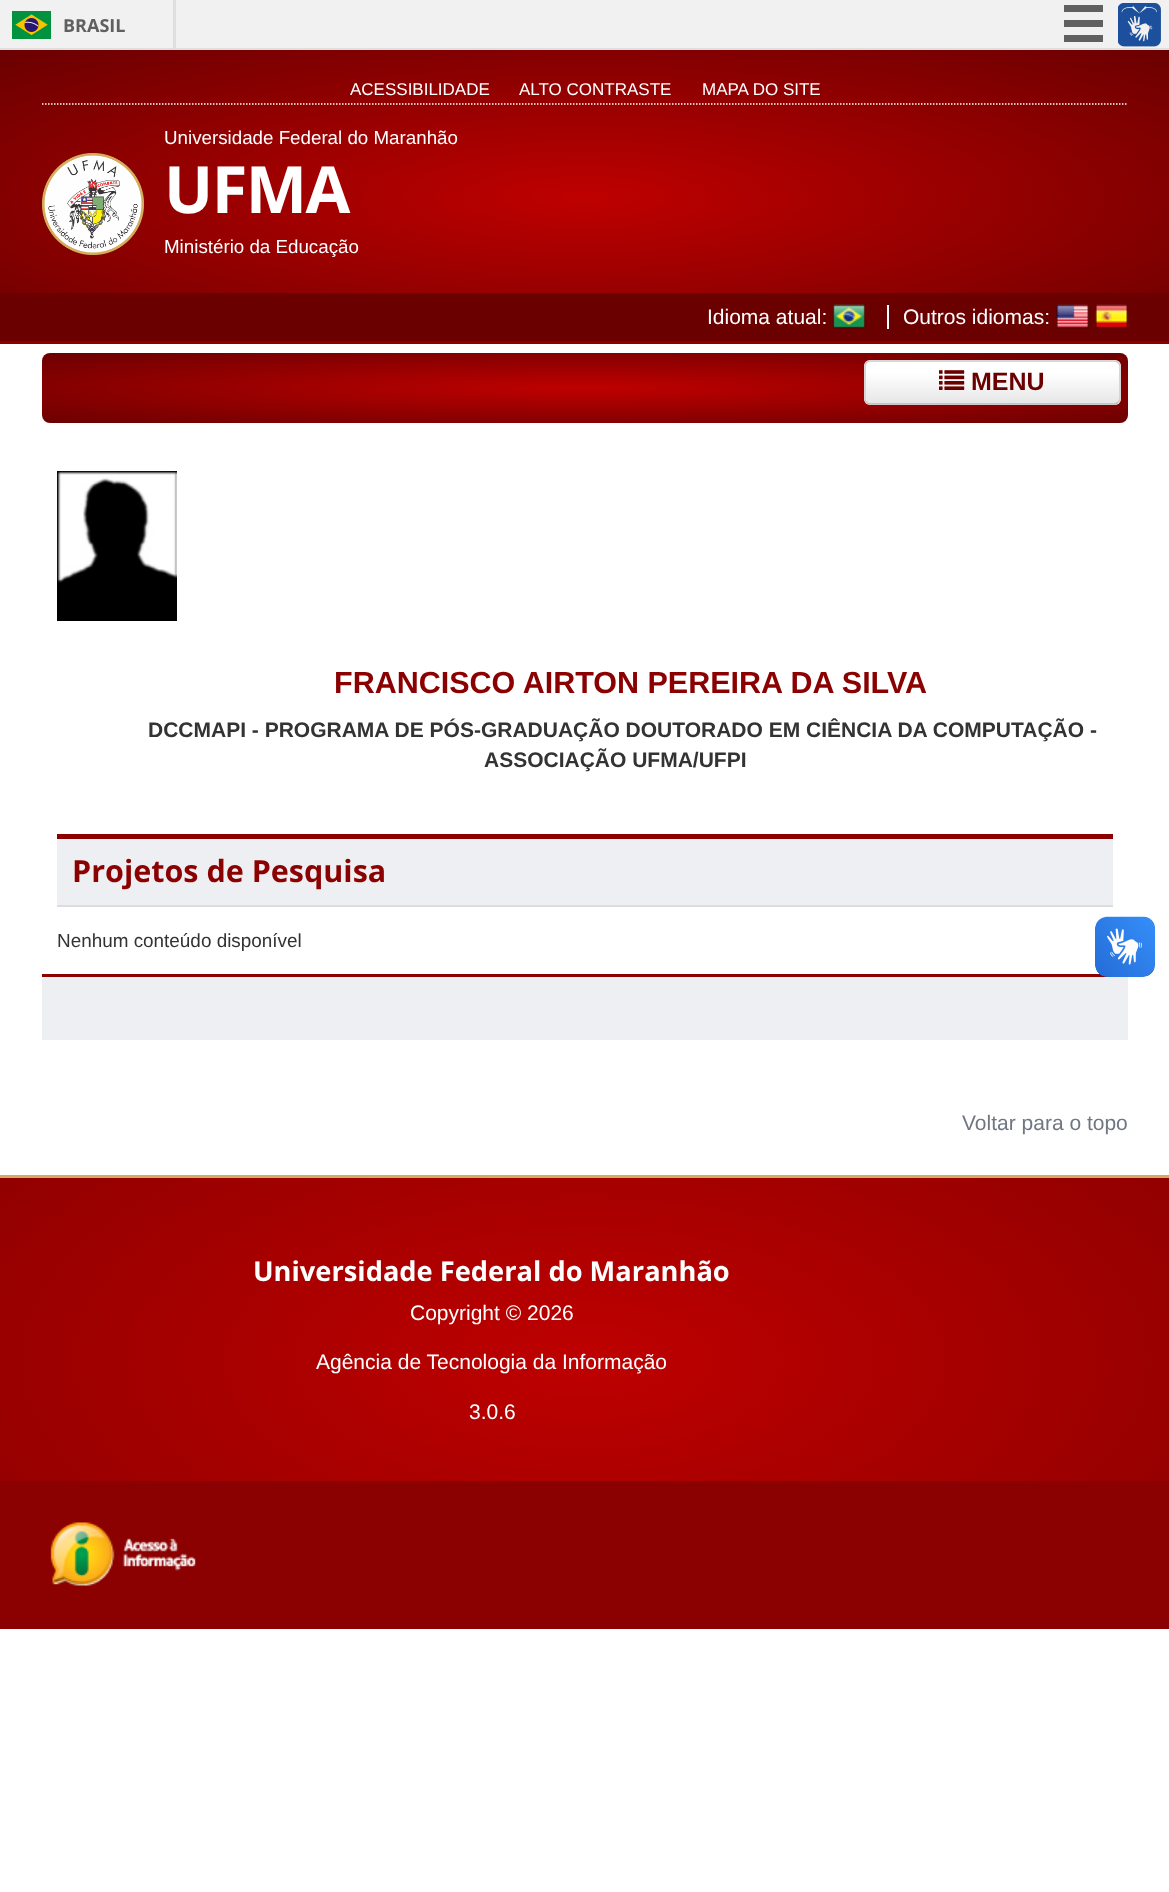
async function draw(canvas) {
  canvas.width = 1169
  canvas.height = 1892
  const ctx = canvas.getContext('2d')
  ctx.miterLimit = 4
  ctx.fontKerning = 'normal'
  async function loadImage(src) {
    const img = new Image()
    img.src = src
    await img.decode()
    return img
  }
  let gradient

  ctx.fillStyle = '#fff'
  ctx.fillRect(0, 0, 1169, 1892)
  ctx.fillStyle = '#f1f1f1'
  ctx.fillRect(0, 0, 1169, 48)
  ctx.fillStyle = '#dfdfdf'
  ctx.fillRect(0, 48, 1169, 2)
  ctx.fillRect(173, 0, 3, 48)
  ctx.drawImage(await loadImage('image0.png'), 12, 11, 39, 28)
  ctx.font = 'bold 18px Open Sans'
  ctx.fillStyle = '#606060'
  ctx.fillText('BRASIL', 63, 32)
  ctx.fillRect(1064, 5, 39, 7)
  ctx.fillRect(1064, 20, 39, 7)
  ctx.fillRect(1064, 35, 39, 7)
  ctx.drawImage(await loadImage('image1.png'), 1118, 3, 43, 44)
  gradient = ctx.createRadialGradient(585, 783.26, 0, 585, 783.26, 827)
  gradient.addColorStop(0.01, '#be0000')
  gradient.addColorStop(1, '#6b0000')
  ctx.fillStyle = gradient
  ctx.beginPath()
  ctx.rect(0, 50, 1169, 243)
  ctx.save()
  ctx.clip()
  ctx.scale(1, 208 / 827)
  ctx.fillRect(0, 0, 1169, 7523)
  ctx.restore()
  ctx.beginPath()
  ctx.moveTo(42, 104)
  ctx.lineTo(1128, 104)
  ctx.strokeStyle = '#fff'
  ctx.lineWidth = 1.5
  ctx.setLineDash([1.5, 1.5])
  ctx.stroke()
  ctx.font = '17px Liberation Sans'
  ctx.fillStyle = '#fff'
  ctx.fillText('ACESSIBILIDADE', 350, 95)
  ctx.fillText('ALTO CONTRASTE', 519, 95)
  ctx.fillText('MAPA DO SITE', 702, 95)
  ctx.drawImage(await loadImage('image2.png'), 42, 153, 102, 102)
  ctx.font = '18.75px Liberation Sans'
  ctx.fillText('Universidade Federal do Maranhão', 164, 144)
  ctx.letterSpacing = '-1.5px'
  ctx.font = 'bold 65px Open Sans'
  ctx.fillText('UFMA', 164, 213)
  ctx.letterSpacing = '0px'
  ctx.font = '18.75px Liberation Sans'
  ctx.fillText('Ministério da Educação', 164, 253)
  ctx.fillStyle = '#6b0000'
  ctx.fillRect(0, 293, 1169, 48)
  ctx.fillStyle = '#8b0000'
  ctx.fillRect(0, 341, 1169, 3)
  ctx.font = '21px Liberation Sans'
  ctx.fillStyle = '#fff'
  ctx.fillText('Idioma atual:', 707, 324)
  ctx.fillRect(887, 305, 2, 24)
  ctx.drawImage(await loadImage('image3.png'), 832, 304, 34, 25)
  ctx.fillText('Outros idiomas:', 903, 324)
  ctx.drawImage(await loadImage('image4.png'), 1056, 304, 33, 25)
  ctx.drawImage(await loadImage('image5.png'), 1095, 304, 33, 25)
  gradient = ctx.createRadialGradient(585, 5959.68, 0, 585, 5959.68, 768)
  gradient.addColorStop(0.01, '#be0000')
  gradient.addColorStop(1, '#6b0000')
  ctx.fillStyle = gradient
  ctx.beginPath()
  ctx.roundRect(42, 353, 1086, 70, 8)
  ctx.save()
  ctx.clip()
  ctx.scale(1, 50 / 768)
  ctx.fillRect(0, 0, 1169, 29062)
  ctx.restore()
  ctx.fillStyle = '#fafafa'
  ctx.beginPath()
  ctx.roundRect(864, 360, 257, 45, 6)
  ctx.fill()
  gradient = ctx.createLinearGradient(992, 362, 992, 404)
  gradient.addColorStop(0, '#fff')
  gradient.addColorStop(0.25, '#fff')
  gradient.addColorStop(1, '#e6e6e6')
  ctx.fillStyle = gradient
  ctx.fillRect(866, 362, 253, 42)
  ctx.beginPath()
  ctx.moveTo(1118, 402.5)
  ctx.lineTo(1115, 404)
  ctx.lineTo(870, 404)
  ctx.bezierCurveTo(868.5, 404, 867.5, 403.5, 866.5, 402.5)
  ctx.strokeStyle = '#bbb'
  ctx.setLineDash([])
  ctx.stroke()
  ctx.beginPath()
  ctx.moveTo(866.5, 402.5)
  ctx.bezierCurveTo(865.5, 401.5, 865, 400.5, 865, 399)
  ctx.lineTo(865, 366)
  ctx.bezierCurveTo(865, 364.5, 865.5, 363.5, 866.5, 362.5)
  ctx.bezierCurveTo(867.5, 361.5, 868.5, 361, 870, 361)
  ctx.lineTo(1114.5, 361)
  ctx.bezierCurveTo(1116, 361, 1117, 361.5, 1118, 362.5)
  ctx.bezierCurveTo(1119, 363.5, 1120, 364.5, 1120, 366)
  ctx.lineTo(1120, 399)
  ctx.bezierCurveTo(1120, 400.5, 1119, 401.5, 1118, 402.5)
  ctx.strokeStyle = '#ccc'
  ctx.stroke()
  ctx.drawImage(await loadImage('image6.png'), 939, 370, 26, 20)
  ctx.font = 'bold 25px Liberation Sans'
  ctx.fillStyle = '#6b0000'
  ctx.fillText('MENU', 971, 390)
  ctx.drawImage(await loadImage('image7.png'), 57, 471, 120, 150)
  ctx.font = 'bold 30.5px Liberation Sans'
  ctx.fillStyle = '#8b0000'
  ctx.fillText('FRANCISCO AIRTON PEREIRA DA SILVA', 334, 693)
  ctx.font = 'bold 21px Liberation Sans'
  ctx.fillStyle = '#333'
  ctx.fillText('DCCMAPI - PROGRAMA DE PÓS-GRADUAÇÃO DOUTORADO EM CIÊNCIA DA COMPUTAÇÃO -', 148, 737)
  ctx.fillText('ASSOCIAÇÃO UFMA/UFPI', 484, 767)
  ctx.fillStyle = '#eeeff2'
  ctx.fillRect(57, 839, 1056, 66)
  ctx.fillStyle = '#8b0000'
  ctx.fillRect(57, 834, 1056, 5)
  ctx.fillStyle = '#ddd'
  ctx.fillRect(57, 905, 1056, 2)
  ctx.font = 'bold 30.5px Open Sans'
  ctx.fillStyle = '#8b0000'
  ctx.fillText('Projetos de Pesquisa', 72, 882)
  ctx.font = '18.9px Liberation Sans'
  ctx.fillStyle = '#333'
  ctx.fillText('Nenhum conteúdo disponível', 57, 947)
  ctx.fillStyle = '#eeeff2'
  ctx.fillRect(42, 977, 1086, 63)
  ctx.fillStyle = '#8b0000'
  ctx.fillRect(42, 974, 1065, 3)
  ctx.drawImage(await loadImage('image8.png'), 1095, 916, 60, 61)
  ctx.drawImage(await loadImage('image9.png'), 1095, 917, 60, 60)
  gradient = ctx.createRadialGradient(585, 2961.97, 0, 585, 2961.97, 827)
  gradient.addColorStop(0.01, '#be0000')
  gradient.addColorStop(1, '#8b0000')
  ctx.fillStyle = gradient
  ctx.beginPath()
  ctx.rect(0, 1178, 1169, 303)
  ctx.save()
  ctx.clip()
  ctx.scale(1, 380 / 827)
  ctx.fillRect(0, 0, 1169, 4118)
  ctx.restore()
  ctx.fillStyle = '#d3ad5d'
  ctx.fillRect(0, 1175, 1169, 3)
  ctx.font = '21px Liberation Sans'
  ctx.fillStyle = '#717782'
  ctx.fillText('Voltar para o topo', 962, 1130)
  ctx.font = 'bold 27.25px Open Sans'
  ctx.fillStyle = '#fff'
  ctx.fillText('Universidade Federal do Maranhão', 253, 1281)
  ctx.font = '21px Liberation Sans'
  ctx.fillText('Copyright © 2026', 410, 1320)
  ctx.fillText('Agência de Tecnologia da Informação', 316, 1369)
  ctx.fillText('3.0.6', 469, 1419)
  ctx.fillStyle = '#8b0000'
  ctx.fillRect(0, 1481, 1169, 148)
  ctx.drawImage(await loadImage('image10.png'), 50, 1522, 146, 64)
}

draw(document.querySelector('canvas'))
